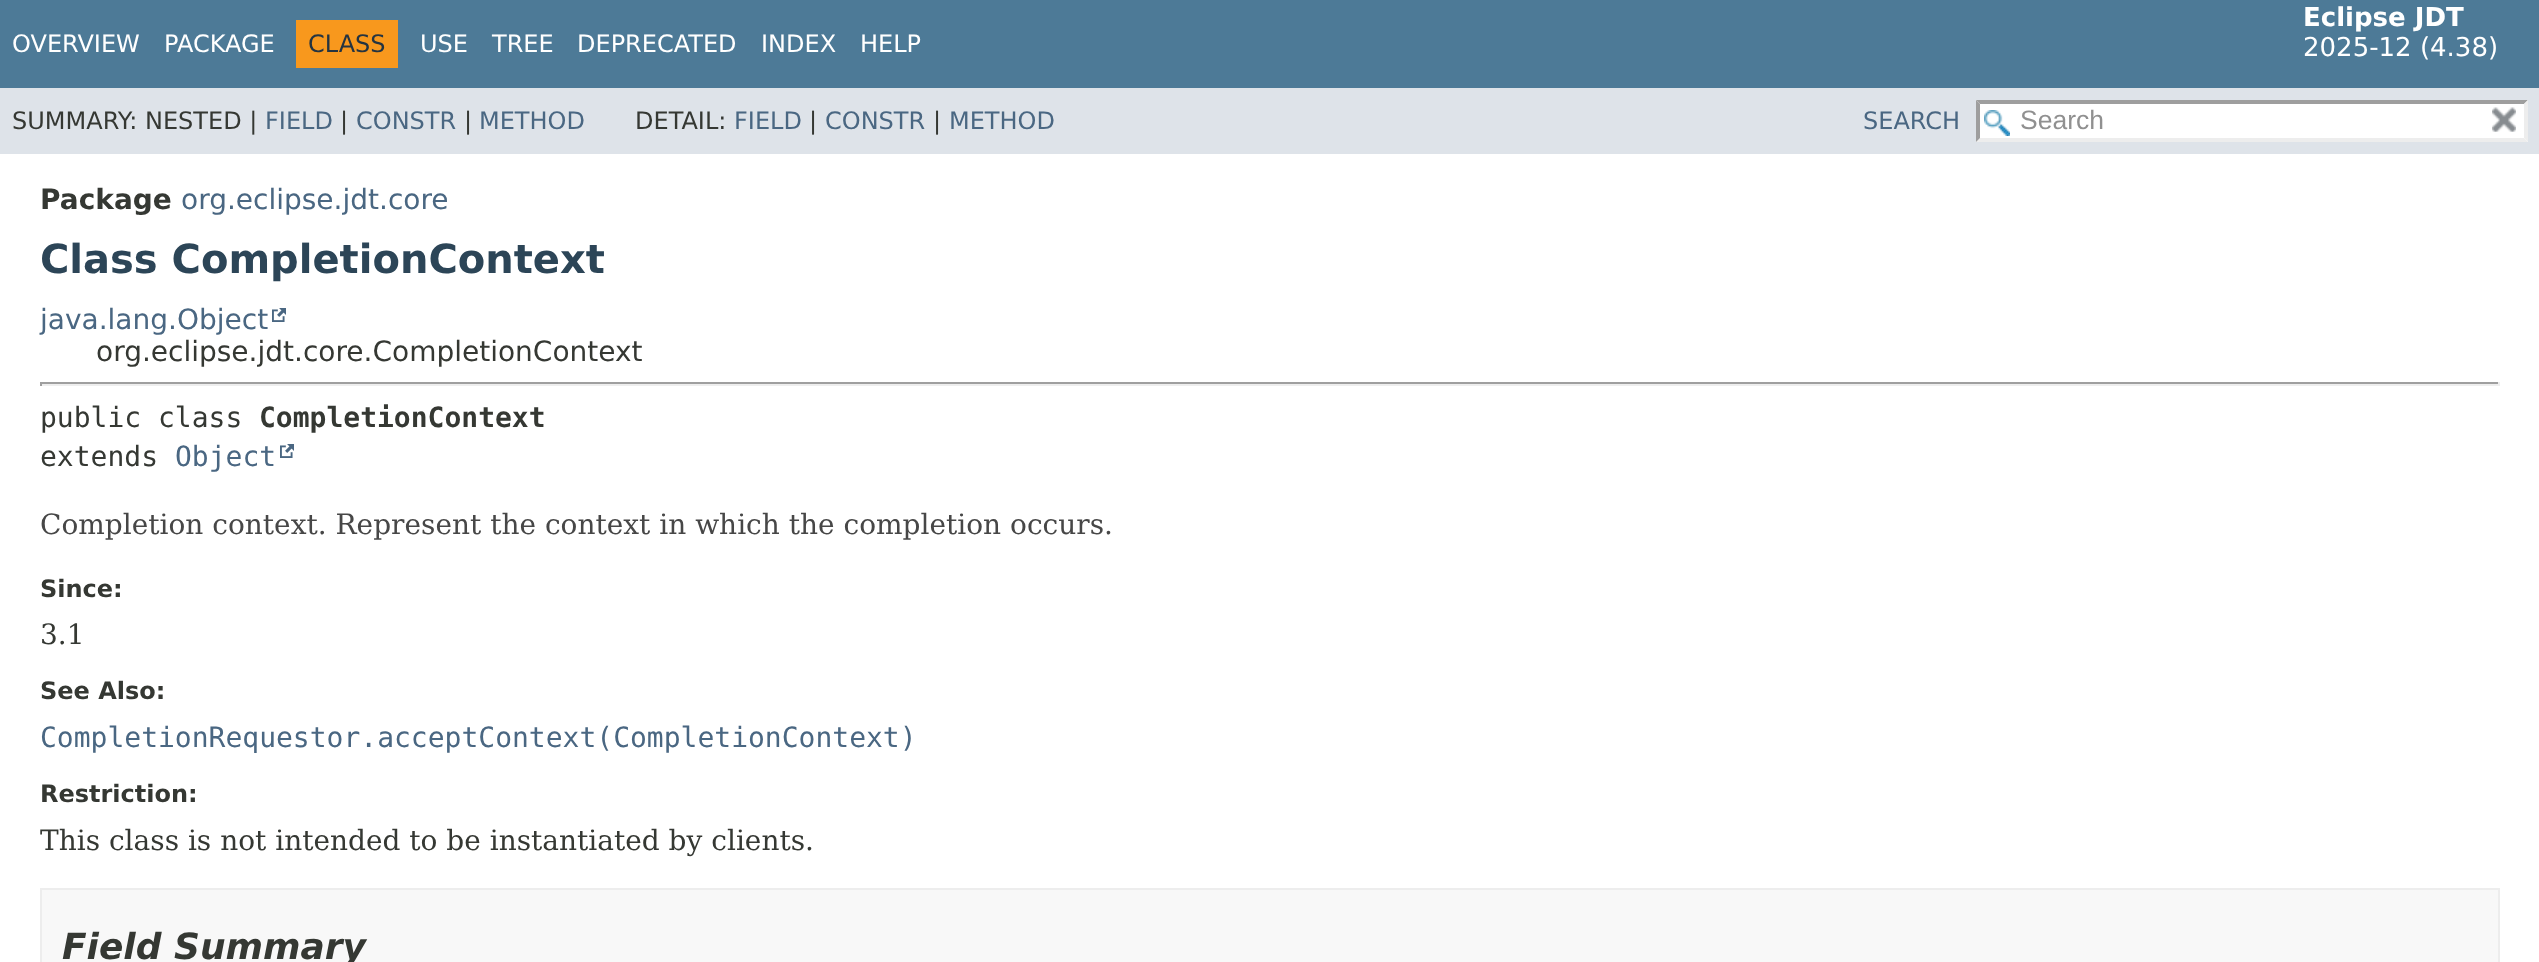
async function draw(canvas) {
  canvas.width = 2539
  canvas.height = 962
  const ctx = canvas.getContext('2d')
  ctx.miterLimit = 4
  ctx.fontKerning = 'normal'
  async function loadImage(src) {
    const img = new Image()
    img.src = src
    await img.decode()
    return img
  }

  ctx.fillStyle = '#fff'
  ctx.fillRect(0, 0, 2539, 962)
  ctx.fillStyle = '#4d7a97'
  ctx.fillRect(0, 0, 2539, 88)
  ctx.font = '24px DejaVu Sans'
  ctx.fillStyle = '#fff'
  ctx.fillText('OVERVIEW', 12, 52)
  ctx.fillText('PACKAGE', 164, 52)
  ctx.fillStyle = '#f8981d'
  ctx.fillRect(296, 20, 102, 48)
  ctx.fillStyle = '#253441'
  ctx.fillText('CLASS', 308, 52)
  ctx.fillStyle = '#fff'
  ctx.fillText('USE', 420, 52)
  ctx.fillText('TREE', 492, 52)
  ctx.fillText('DEPRECATED', 577, 52)
  ctx.fillText('INDEX', 761, 52)
  ctx.fillText('HELP', 860, 52)
  ctx.font = 'bold 26px DejaVu Sans'
  ctx.fillText('Eclipse JDT', 2303, 26)
  ctx.font = '26px DejaVu Sans'
  ctx.fillText('2025-12 (4.38)', 2303, 56)
  ctx.fillStyle = '#dee3e9'
  ctx.fillRect(0, 88, 2539, 66)
  ctx.font = '24px DejaVu Sans'
  ctx.fillStyle = '#353833'
  ctx.fillText('SUMMARY: NESTED |', 12, 129)
  ctx.fillStyle = '#4a6782'
  ctx.fillText('FIELD', 265, 129)
  ctx.fillStyle = '#353833'
  ctx.fillText('|', 340, 129)
  ctx.fillStyle = '#4a6782'
  ctx.fillText('CONSTR', 356, 129)
  ctx.fillStyle = '#353833'
  ctx.fillText('|', 464, 129)
  ctx.fillStyle = '#4a6782'
  ctx.fillText('METHOD', 479, 129)
  ctx.fillStyle = '#353833'
  ctx.fillText('DETAIL:', 635, 129)
  ctx.fillStyle = '#4a6782'
  ctx.fillText('FIELD', 734, 129)
  ctx.fillStyle = '#353833'
  ctx.fillText('|', 809, 129)
  ctx.fillStyle = '#4a6782'
  ctx.fillText('CONSTR', 825, 129)
  ctx.fillStyle = '#353833'
  ctx.fillText('|', 933, 129)
  ctx.fillStyle = '#4a6782'
  ctx.fillText('METHOD', 949, 129)
  ctx.fillText('SEARCH', 1863, 129)
  ctx.fillStyle = '#fff'
  ctx.fillRect(1976, 100, 552, 42)
  ctx.drawImage(await loadImage('image0.png'), 1984, 110, 26, 26)
  ctx.fillStyle = '#9e9e9e'
  ctx.beginPath()
  ctx.moveTo(1976, 100)
  ctx.lineTo(2528, 100)
  ctx.lineTo(2524, 104)
  ctx.lineTo(1980, 104)
  ctx.closePath()
  ctx.fill()
  ctx.fillStyle = '#ededed'
  ctx.beginPath()
  ctx.moveTo(2528, 100)
  ctx.lineTo(2528, 142)
  ctx.lineTo(2524, 138)
  ctx.lineTo(2524, 104)
  ctx.closePath()
  ctx.fill()
  ctx.beginPath()
  ctx.moveTo(2528, 142)
  ctx.lineTo(1976, 142)
  ctx.lineTo(1980, 138)
  ctx.lineTo(2524, 138)
  ctx.closePath()
  ctx.fill()
  ctx.fillStyle = '#9e9e9e'
  ctx.beginPath()
  ctx.moveTo(1976, 142)
  ctx.lineTo(1976, 100)
  ctx.lineTo(1980, 104)
  ctx.lineTo(1980, 138)
  ctx.closePath()
  ctx.fill()
  ctx.font = '26.5px Liberation Sans'
  ctx.fillStyle = '#909090'
  ctx.fillText('Search', 2020, 129)
  ctx.drawImage(await loadImage('image1.png'), 2492, 107, 24, 25)
  ctx.font = 'bold 28px DejaVu Sans'
  ctx.fillStyle = '#353833'
  ctx.fillText('Package', 40, 209)
  ctx.font = '28px DejaVu Sans'
  ctx.fillStyle = '#4a6782'
  ctx.fillText('org.eclipse.jdt.core', 181, 209)
  ctx.font = 'bold 40px DejaVu Sans'
  ctx.fillStyle = '#2c4557'
  ctx.fillText('Class CompletionContext', 40, 273)
  ctx.font = '28px DejaVu Sans'
  ctx.fillStyle = '#4a6782'
  ctx.fillText('java.lang.Object', 40, 329)
  ctx.drawImage(await loadImage('image2.png'), 272, 308, 14, 14)
  ctx.fillStyle = '#353833'
  ctx.fillText('org.eclipse.jdt.core.CompletionContext', 96, 361)
  ctx.fillStyle = '#9f9f9f'
  ctx.fillRect(40, 382, 2460, 2)
  ctx.fillStyle = '#eee'
  ctx.fillRect(2498, 382, 2, 4)
  ctx.fillRect(40, 384, 2460, 2)
  ctx.fillStyle = '#9f9f9f'
  ctx.fillRect(40, 382, 2, 4)
  ctx.font = '28px DejaVu Sans Mono'
  ctx.fillStyle = '#353833'
  ctx.fillText('public class', 40, 427)
  ctx.font = 'bold 28px DejaVu Sans Mono'
  ctx.fillText('CompletionContext', 259, 427)
  ctx.font = '28px DejaVu Sans Mono'
  ctx.fillText('extends', 40, 466)
  ctx.fillStyle = '#4a6782'
  ctx.fillText('Object', 175, 466)
  ctx.drawImage(await loadImage('image2.png'), 280, 444, 14, 14)
  ctx.font = '28px DejaVu Serif'
  ctx.fillStyle = '#474747'
  ctx.fillText('Completion context. Represent the context in which the completion occurs.', 40, 534)
  ctx.font = 'bold 24px DejaVu Sans'
  ctx.fillStyle = '#353833'
  ctx.fillText('Since:', 40, 597)
  ctx.font = '28px DejaVu Serif'
  ctx.fillText('3.1', 40, 644)
  ctx.font = 'bold 24px DejaVu Sans'
  ctx.fillText('See Also:', 40, 699)
  ctx.font = '28px DejaVu Sans Mono'
  ctx.fillStyle = '#4a6782'
  ctx.fillText('CompletionRequestor.acceptContext(CompletionContext)', 40, 747)
  ctx.font = 'bold 24px DejaVu Sans'
  ctx.fillStyle = '#353833'
  ctx.fillText('Restriction:', 40, 802)
  ctx.font = '28px DejaVu Serif'
  ctx.fillText('This class is not intended to be instantiated by clients.', 40, 850)
  ctx.fillStyle = '#f8f8f8'
  ctx.beginPath()
  ctx.rect(41, 889, 2458, 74)
  ctx.fill()
  ctx.strokeStyle = '#ededed'
  ctx.lineWidth = 2
  ctx.stroke()
  ctx.font = 'italic bold 36px DejaVu Sans'
  ctx.fillStyle = '#353833'
  ctx.fillText('Field Summary', 62, 959)
}

draw(document.querySelector('canvas'))
